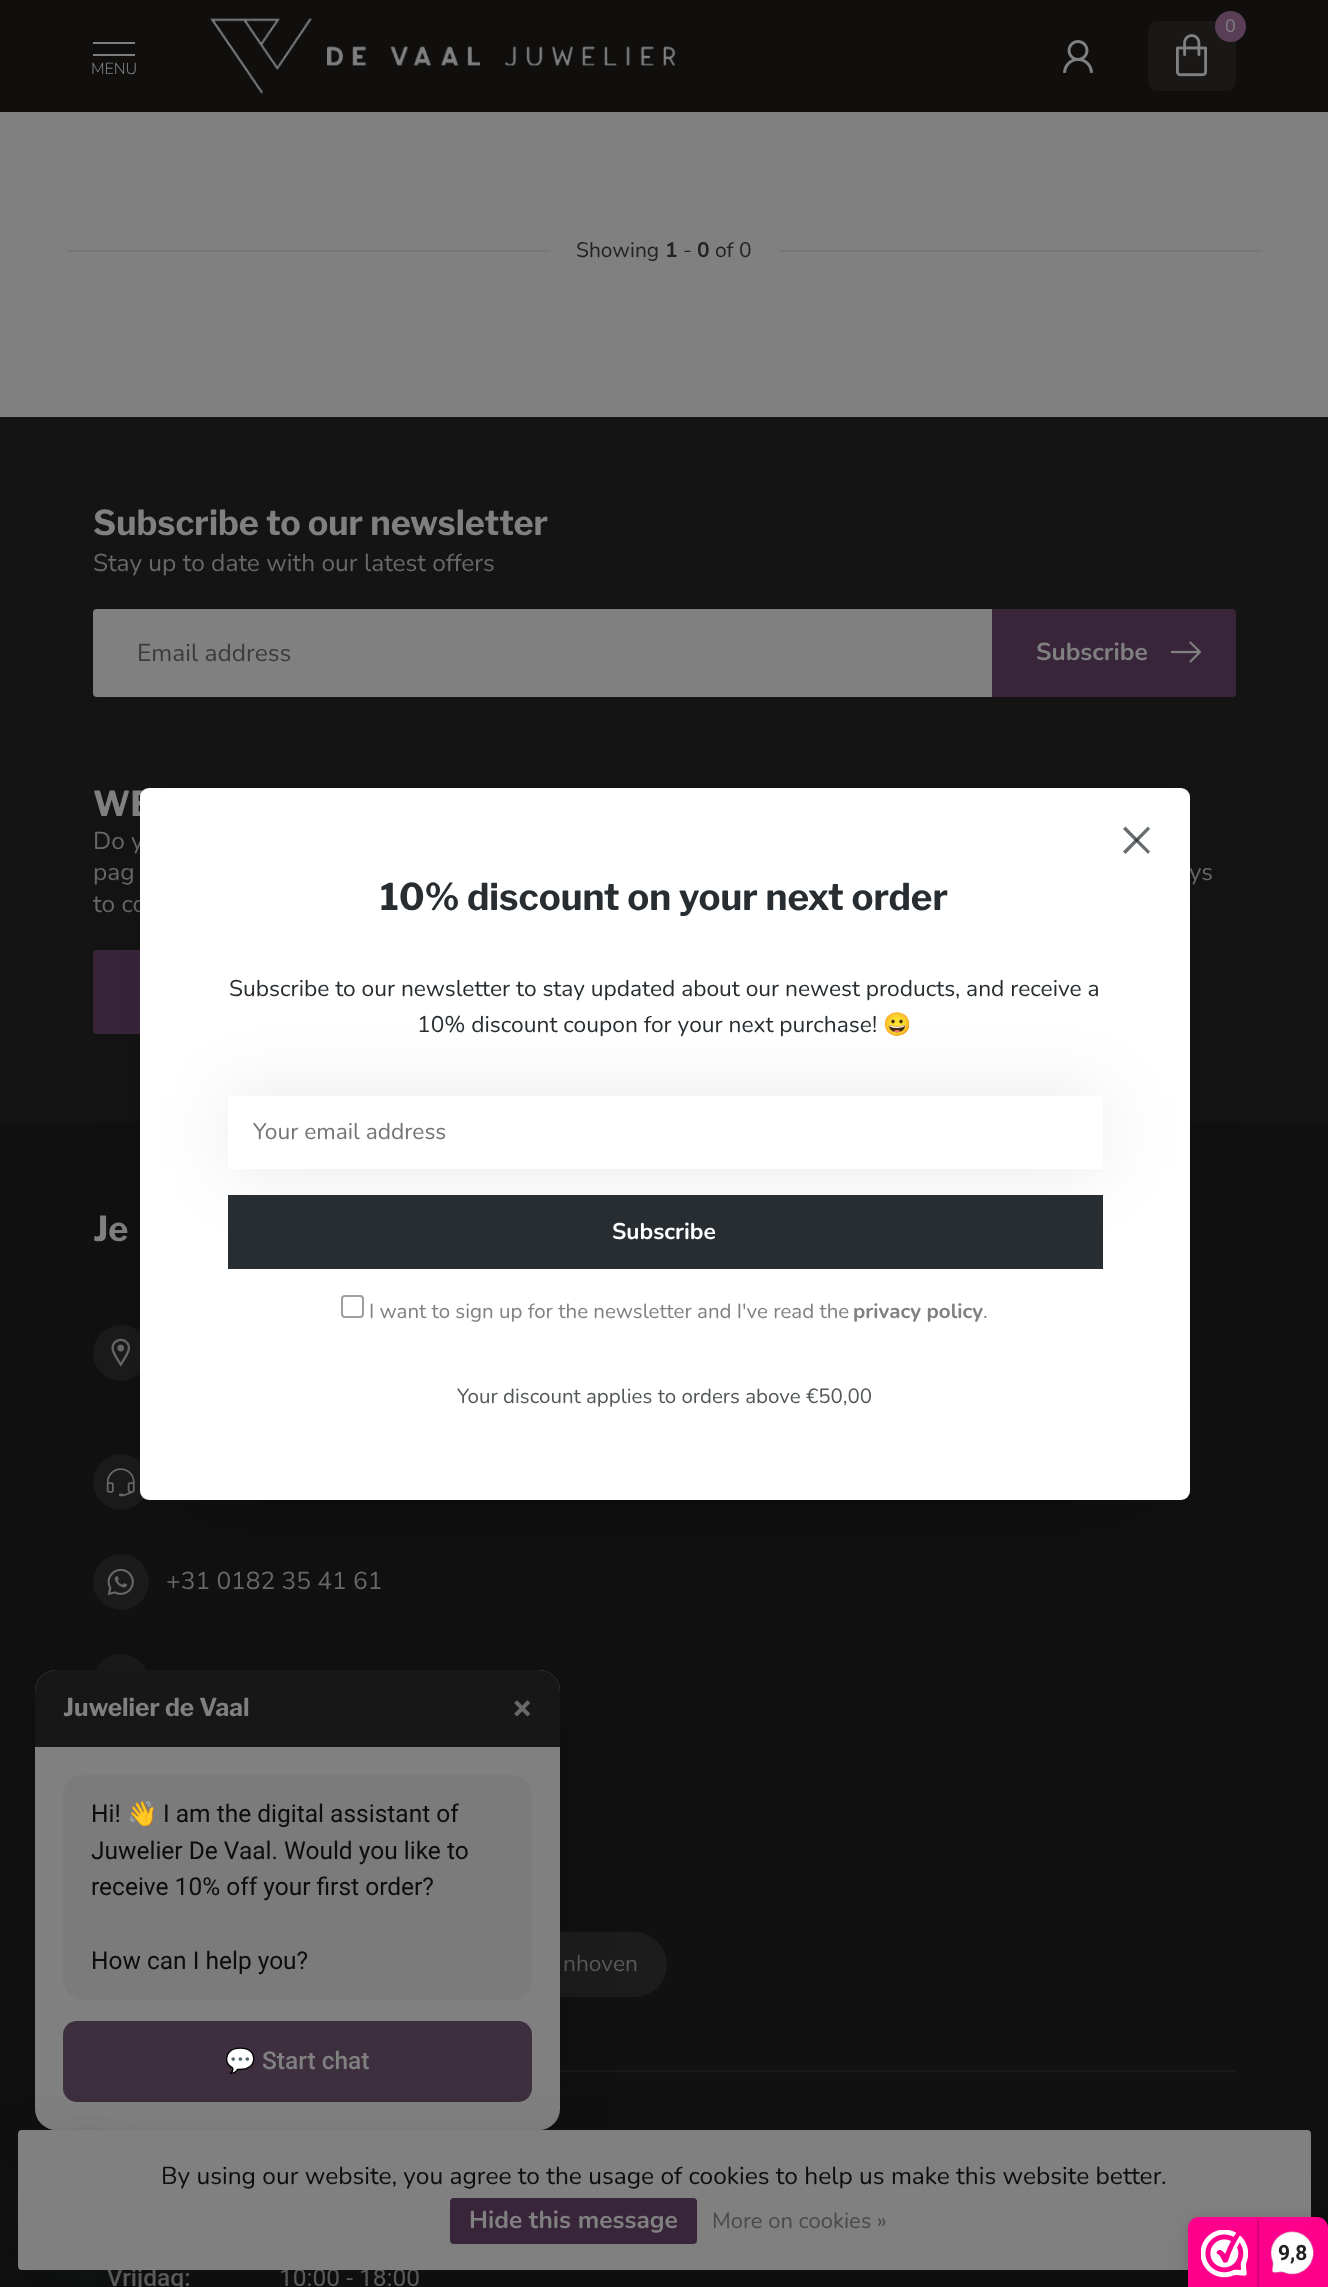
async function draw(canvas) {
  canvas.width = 1328
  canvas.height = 2287
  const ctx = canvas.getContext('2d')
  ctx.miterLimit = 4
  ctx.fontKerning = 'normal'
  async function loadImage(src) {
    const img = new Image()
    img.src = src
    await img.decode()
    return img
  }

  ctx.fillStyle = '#808080'
  ctx.fillRect(0, 0, 1328, 2287)
  ctx.fillStyle = '#100f0e'
  ctx.fillRect(0, 0, 1328, 112)
  ctx.drawImage(await loadImage('image0.png'), 210, 17, 466, 78)
  ctx.fillStyle = '#191817'
  ctx.beginPath()
  ctx.roundRect(1148, 21, 88, 70, 9)
  ctx.fill()
  ctx.fillStyle = '#593e55'
  ctx.beginPath()
  ctx.arc(1230.5, 26.5, 15.5, 0, 2 * Math.PI)
  ctx.fill()
  ctx.font = '18px Nunito'
  ctx.fillStyle = '#808080'
  ctx.fillText('0', 1225, 32)
  ctx.drawImage(await loadImage('image1.png'), 1176, 34, 31, 43)
  ctx.drawImage(await loadImage('image2.png'), 1063, 40, 30, 33)
  ctx.fillRect(93, 42, 42, 2)
  ctx.fillRect(93, 54, 42, 2)
  ctx.font = '300 16px Nunito'
  ctx.fillText('MENU', 91, 74)
  ctx.fillStyle = '#777'
  ctx.fillRect(67, 250, 1195, 2)
  ctx.fillStyle = '#808080'
  ctx.fillRect(550, 250, 229, 2)
  ctx.font = '21px Nunito'
  ctx.fillStyle = '#222'
  ctx.fillText('Showing', 576, 257)
  ctx.font = 'bold 21px Nunito'
  ctx.fillText('1', 665, 257)
  ctx.fillText('0', 697, 257)
  ctx.font = '21px Nunito'
  ctx.fillText('of 0', 715, 257)
  ctx.fillText('-', 683, 257)
  ctx.fillStyle = '#111'
  ctx.fillRect(0, 1122, 1328, 1165)
  ctx.fillStyle = '#141414'
  ctx.fillRect(0, 417, 1328, 705)
  ctx.font = 'bold 34.25px Libre Franklin'
  ctx.fillStyle = '#808080'
  ctx.fillText('Subscribe to our newsletter', 93, 535)
  ctx.font = '24.5px Nunito'
  ctx.fillStyle = '#686868'
  ctx.fillText('Stay up to date with our latest offers', 93, 571)
  ctx.fillStyle = '#808080'
  ctx.beginPath()
  ctx.roundRect(93, 609, 899, 88, [4, 0, 0, 4])
  ctx.fill()
  ctx.fillStyle = '#3b3b3b'
  ctx.fillText('Email address', 137, 661)
  ctx.fillStyle = '#39253a'
  ctx.beginPath()
  ctx.roundRect(992, 609, 244, 88, [0, 4, 4, 0])
  ctx.fill()
  ctx.font = 'bold 24.5px Nunito'
  ctx.fillStyle = '#808080'
  ctx.fillText('Subscribe', 1036, 660)
  ctx.drawImage(await loadImage('image3.png'), 1170, 641, 31, 22)
  ctx.font = 'bold 34.25px Libre Franklin'
  ctx.fillText('WE', 93, 816)
  ctx.font = '24.5px Nunito'
  ctx.fillStyle = '#686868'
  ctx.fillText('Do y', 93, 849)
  ctx.fillText('pag', 93, 880)
  ctx.fillText('ys', 1189, 880)
  ctx.fillText('to co', 93, 912)
  ctx.fillStyle = '#39253a'
  ctx.beginPath()
  ctx.roundRect(93, 950, 287, 84, 4)
  ctx.fill()
  ctx.font = 'bold 34.25px Libre Franklin'
  ctx.fillStyle = '#808080'
  ctx.fillText('Je', 93, 1241)
  ctx.fillStyle = '#1b1b1b'
  ctx.beginPath()
  ctx.arc(121, 1353, 28, 0, 2 * Math.PI)
  ctx.fill()
  ctx.drawImage(await loadImage('image4.png'), 111, 1338, 20, 29)
  ctx.beginPath()
  ctx.arc(121, 1482, 28, 0, 2 * Math.PI)
  ctx.fill()
  ctx.drawImage(await loadImage('image5.png'), 106, 1468, 29, 29)
  ctx.beginPath()
  ctx.arc(121, 1582, 28, 0, 2 * Math.PI)
  ctx.fill()
  ctx.drawImage(await loadImage('image6.png'), 107, 1568, 27, 28)
  ctx.font = '24.5px Nunito'
  ctx.fillStyle = '#686868'
  ctx.fillText('+31 0182 35 41 61', 166, 1589)
  ctx.fillStyle = '#1b1b1b'
  ctx.beginPath()
  ctx.arc(121, 1682, 28, 0, 2 * Math.PI)
  ctx.fill()
  ctx.fillStyle = '#1c1c1c'
  ctx.beginPath()
  ctx.roundRect(473, 1932, 194, 65, 32.5)
  ctx.fill()
  ctx.font = '22.75px Nunito'
  ctx.fillStyle = '#585a5c'
  ctx.fillText('nhoven', 563, 1971)
  ctx.drawImage(await loadImage('image7.png'), 107, 2070, 1129, 217)
  ctx.fillStyle = '#00000099'
  ctx.filter = 'blur(44px)'
  ctx.beginPath()
  ctx.rect(193, 875, 945, 607)
  ctx.fill()
  ctx.filter = 'none'
  ctx.fillStyle = '#fff'
  ctx.beginPath()
  ctx.roundRect(140, 788, 1050, 712, 9)
  ctx.fill()
  ctx.fillStyle = '#686c6e'
  ctx.beginPath()
  ctx.moveTo(1125.5, 826.5)
  ctx.lineTo(1150, 851.5)
  ctx.lineTo(1148, 854)
  ctx.lineTo(1123, 829)
  ctx.closePath()
  ctx.fill()
  ctx.fillStyle = '#272d30b3'
  ctx.beginPath()
  ctx.moveTo(1123, 851.5)
  ctx.lineTo(1148, 826.5)
  ctx.lineTo(1150, 829)
  ctx.lineTo(1125.5, 854)
  ctx.closePath()
  ctx.fill()
  ctx.font = 'bold 36.75px Libre Franklin'
  ctx.fillStyle = '#272d30'
  ctx.fillText('10% discount on your next order', 380, 910)
  ctx.fillStyle = '#00000017'
  ctx.filter = 'blur(37px)'
  ctx.beginPath()
  ctx.rect(228, 1096, 875, 73)
  ctx.fill()
  ctx.filter = 'none'
  ctx.font = '22.75px Nunito'
  ctx.fillStyle = '#272d30'
  ctx.fillText('Subscribe to our newsletter to stay updated about our newest products, and receive a', 229, 996)
  ctx.fillText('10% discount coupon for your next purchase!', 417, 1032)
  ctx.font = '22.75px Noto Color Emoji'
  ctx.fillText('😀', 883, 1032)
  ctx.fillStyle = '#fff'
  ctx.fillRect(228, 1096, 875, 73)
  ctx.font = '22.75px Nunito'
  ctx.fillStyle = '#757575'
  ctx.fillText('Your email address', 253, 1139)
  ctx.fillStyle = '#272d30'
  ctx.fillRect(228, 1195, 875, 74)
  ctx.font = 'bold 22.75px Nunito'
  ctx.fillStyle = '#fff'
  ctx.fillText('Subscribe', 612, 1239)
  ctx.beginPath()
  ctx.roundRect(342, 1296, 21, 21, 3)
  ctx.strokeStyle = '#9f9f9f'
  ctx.lineWidth = 2
  ctx.stroke()
  ctx.font = '20.5px Nunito'
  ctx.fillStyle = '#808080'
  ctx.fillText('I want to sign up for the newsletter and I\'ve read the', 369, 1318)
  ctx.font = 'bold 20.5px Nunito'
  ctx.fillText('privacy policy', 853, 1318)
  ctx.font = '20.5px Nunito'
  ctx.fillText('.', 983, 1318)
  ctx.fillStyle = '#525759'
  ctx.fillText('Your discount applies to orders above €50,00', 457, 1403)
  ctx.fillStyle = '#00000026'
  ctx.filter = 'blur(26px)'
  ctx.beginPath()
  ctx.roundRect(35, 1678, 525, 461, 21)
  ctx.fill()
  ctx.filter = 'none'
  ctx.fillStyle = '#808080'
  ctx.beginPath()
  ctx.roundRect(35, 1670, 525, 460, 21)
  ctx.fill()
  ctx.fillStyle = '#171717'
  ctx.beginPath()
  ctx.roundRect(35, 1670, 525, 77, [21, 21, 0, 0])
  ctx.fill()
  ctx.font = 'bold 24.5px Libre Franklin'
  ctx.fillStyle = '#808080'
  ctx.fillText('Juwelier de Vaal', 63, 1716)
  ctx.font = 'bold 35px Roboto'
  ctx.fillStyle = '#686868'
  ctx.fillText('×', 513, 1720)
  ctx.fillStyle = '#7b7b7b'
  ctx.beginPath()
  ctx.roundRect(63, 1775, 469, 225, 21)
  ctx.fill()
  ctx.font = '24.5px Roboto'
  ctx.fillStyle = '#0d0d0d'
  ctx.fillText('Hi!', 91, 1822)
  ctx.font = '24.5px Noto Color Emoji'
  ctx.fillText('👋', 127, 1822)
  ctx.font = '24.5px Roboto'
  ctx.fillText('I am the digital assistant of', 163, 1822)
  ctx.fillText('Juwelier De Vaal. Would you like to', 91, 1859)
  ctx.fillText('receive 10% off your first order?', 91, 1895)
  ctx.fillText('How can I help you?', 91, 1969)
  ctx.fillStyle = '#3e2f3e'
  ctx.beginPath()
  ctx.roundRect(63, 2021, 469, 81, 14)
  ctx.fill()
  ctx.font = '24.5px Noto Color Emoji'
  ctx.fillStyle = '#808080'
  ctx.fillText('💬', 225, 2069)
  ctx.font = '500 24.5px Roboto'
  ctx.fillText('Start chat', 262, 2069)
  ctx.fillStyle = '#136a3366'
  ctx.filter = 'blur(17.5px)'
  ctx.beginPath()
  ctx.roundRect(35, 2154, 105, 105, 52.5)
  ctx.fill()
  ctx.filter = 'none'
  ctx.fillStyle = '#00000026'
  ctx.filter = 'blur(26px)'
  ctx.beginPath()
  ctx.roundRect(18, 2147, 1293, 140, 4)
  ctx.fill()
  ctx.filter = 'none'
  ctx.fillStyle = '#808080'
  ctx.beginPath()
  ctx.roundRect(18, 2130, 1293, 140, 4)
  ctx.fill()
  ctx.font = '24.5px Nunito'
  ctx.fillStyle = '#0d0d0d'
  ctx.fillText('By using our website, you agree to the usage of cookies to help us make this website better.', 161, 2184)
  ctx.fillStyle = '#39253a'
  ctx.beginPath()
  ctx.roundRect(450, 2198, 247, 46, 4)
  ctx.fill()
  ctx.font = 'bold 24.5px Nunito'
  ctx.fillStyle = '#808080'
  ctx.fillText('Hide this message', 469, 2228)
  ctx.font = '22px Nunito'
  ctx.fillStyle = '#4a4a4a'
  ctx.fillText('More on cookies »', 712, 2228)
  ctx.fillStyle = '#00000026'
  ctx.filter = 'blur(9px)'
  ctx.beginPath()
  ctx.roundRect(1188, 2221, 140, 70, 11)
  ctx.fill()
  ctx.filter = 'none'
  ctx.fillStyle = '#fe008c'
  ctx.beginPath()
  ctx.roundRect(1188, 2217, 140, 70, [11, 11, 0, 0])
  ctx.fill()
  ctx.drawImage(await loadImage('image8.png'), 1201, 2230, 47, 48)
  ctx.fillStyle = '#d80077'
  ctx.fillRect(1257, 2219, 2, 68)
  ctx.drawImage(await loadImage('image9.png'), 1270, 2231, 45, 44)
  ctx.font = 'bold 21px Roboto'
  ctx.fillStyle = '#222'
  ctx.fillText('9,8', 1278, 2260)
}

draw(document.querySelector('canvas'))
